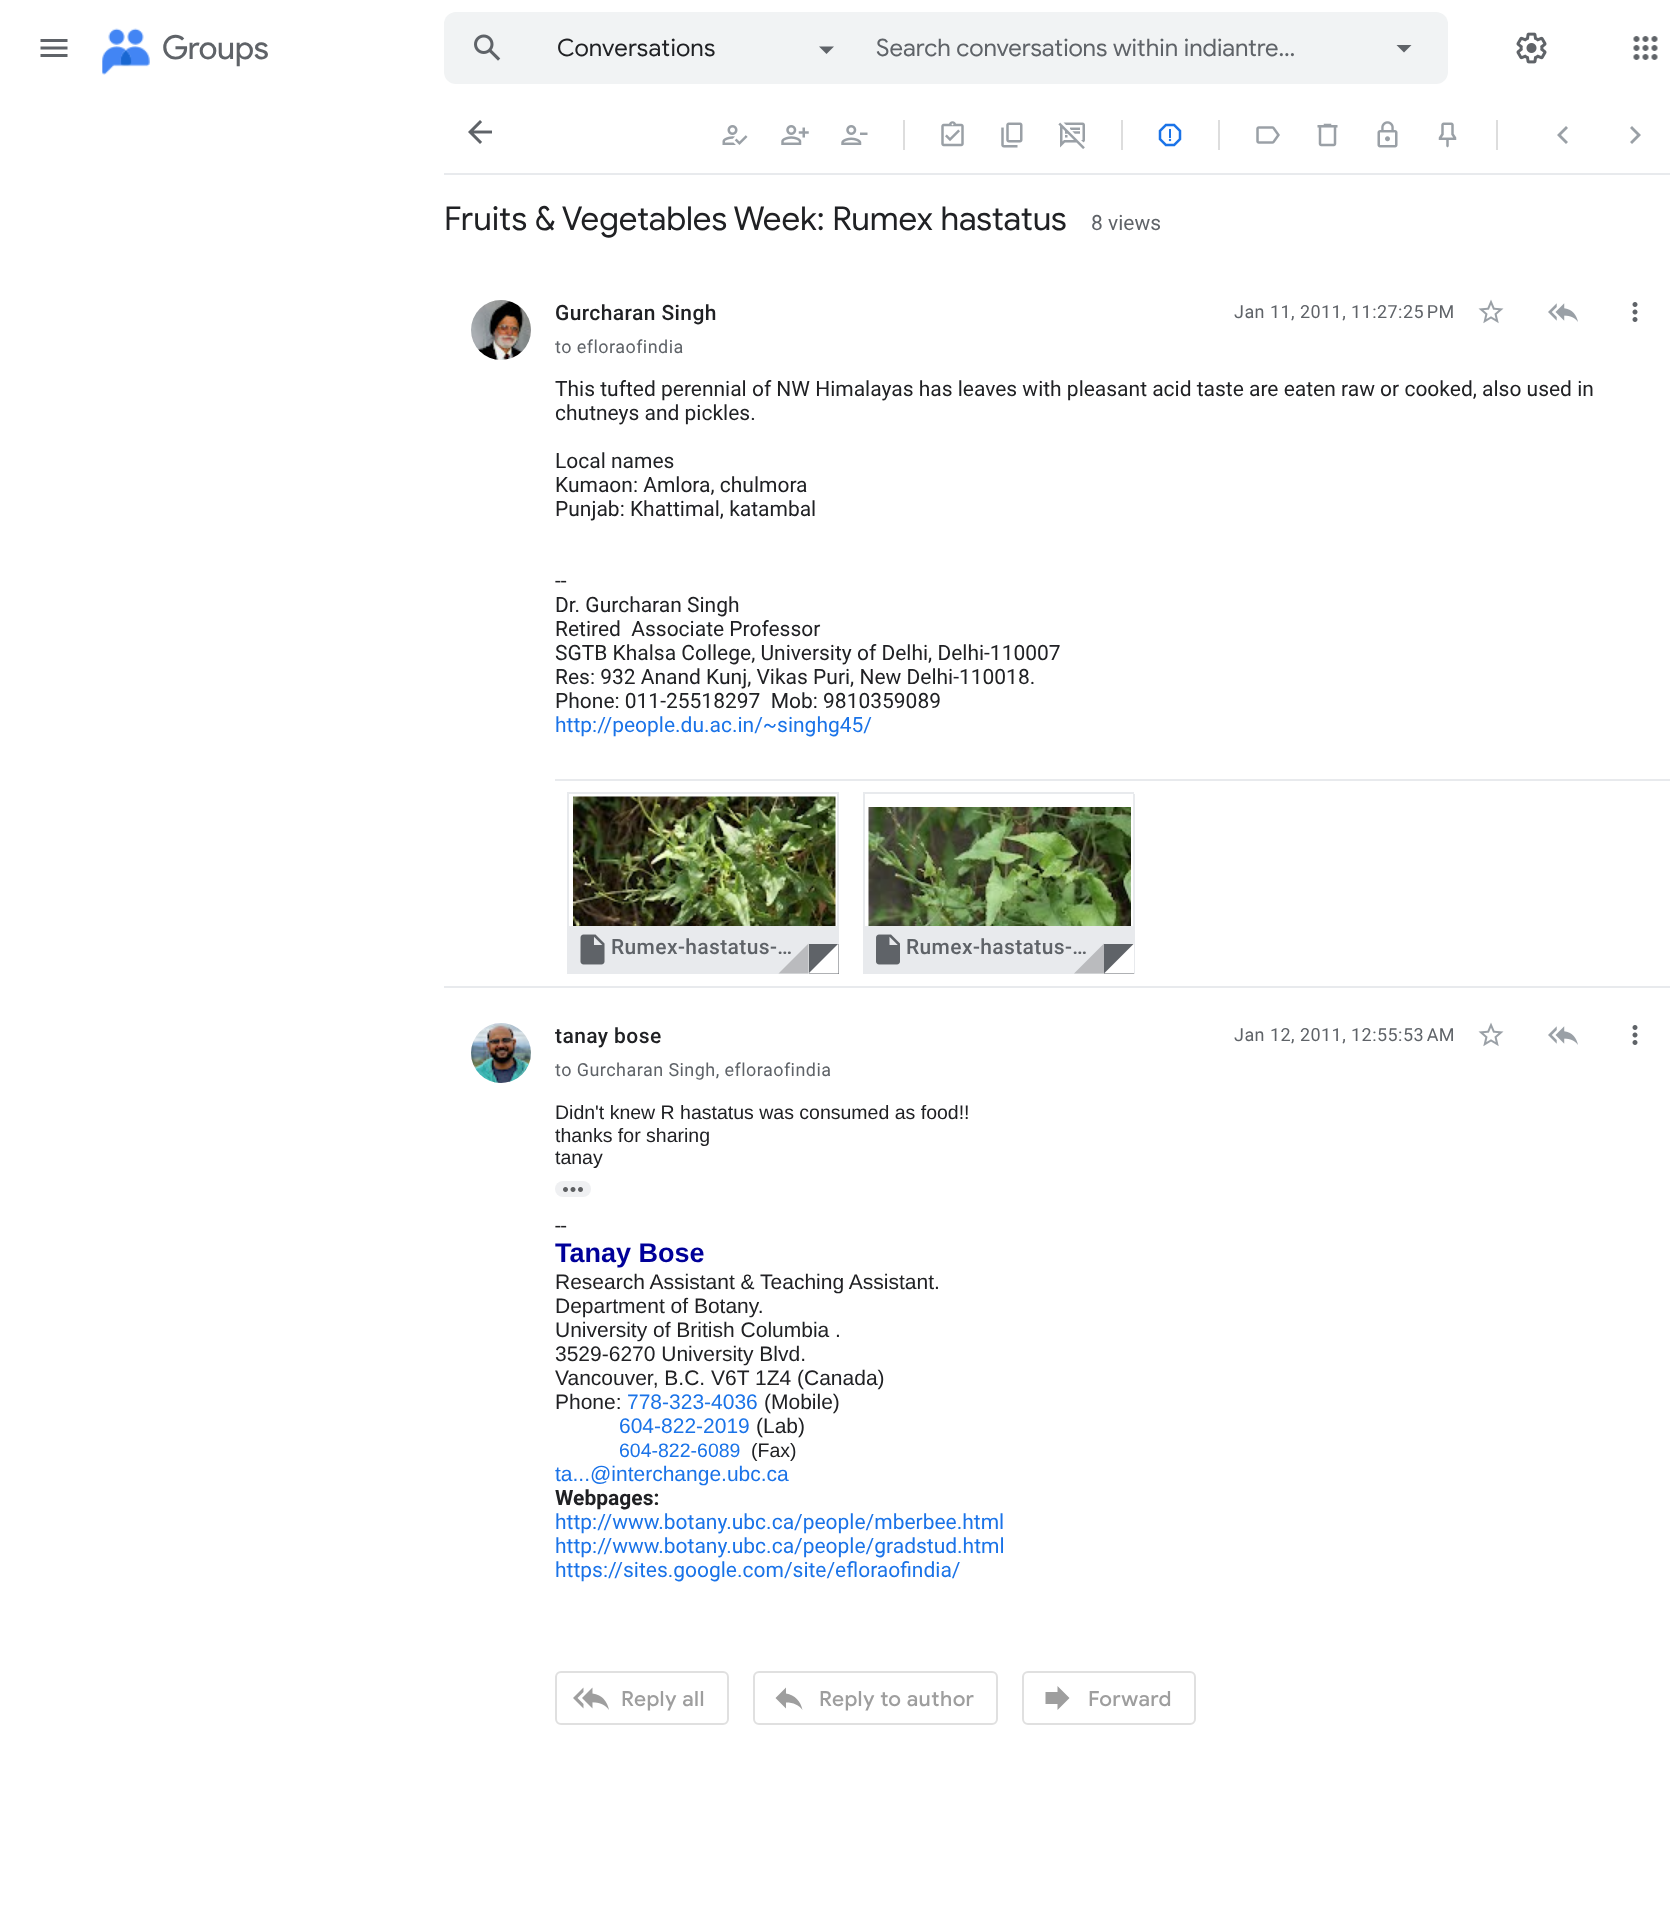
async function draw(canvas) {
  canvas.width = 1670
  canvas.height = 1916
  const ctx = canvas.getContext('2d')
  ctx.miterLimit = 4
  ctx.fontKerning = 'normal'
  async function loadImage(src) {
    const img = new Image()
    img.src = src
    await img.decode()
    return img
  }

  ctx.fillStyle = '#fff'
  ctx.fillRect(0, 0, 1670, 1916)
  ctx.drawImage(await loadImage('image0.png'), 40, 39, 28, 18)
  ctx.drawImage(await loadImage('image1.png'), 102, 28, 48, 47)
  ctx.font = '33px Product Sans'
  ctx.fillStyle = '#5f6368'
  ctx.fillText('Groups', 162, 59)
  ctx.fillStyle = '#f1f3f4'
  ctx.beginPath()
  ctx.roundRect(444, 12, 1004, 72, 12)
  ctx.fill()
  ctx.drawImage(await loadImage('image2.png'), 474, 34, 27, 27)
  ctx.letterSpacing = '0.25px'
  ctx.font = '24px Google Sans'
  ctx.fillStyle = '#202124'
  ctx.fillText('Conversations', 557, 56)
  ctx.fillStyle = '#5f6368'
  ctx.beginPath()
  ctx.moveTo(819, 46.5)
  ctx.lineTo(834, 46.5)
  ctx.lineTo(826.5, 54)
  ctx.closePath()
  ctx.fill()
  ctx.letterSpacing = '0px'
  ctx.fillText('Search conversations within indiantre…', 876, 56)
  ctx.beginPath()
  ctx.moveTo(1396.5, 45)
  ctx.lineTo(1404, 52.5)
  ctx.lineTo(1411.5, 45)
  ctx.closePath()
  ctx.fill()
  ctx.drawImage(await loadImage('image3.png'), 1516, 32, 31, 32)
  ctx.drawImage(await loadImage('image4.png'), 1633, 36, 25, 24)
  ctx.fillStyle = '#e8eaed'
  ctx.fillRect(444, 173, 1226, 2)
  ctx.drawImage(await loadImage('image5.png'), 468, 120, 24, 24)
  ctx.drawImage(await loadImage('image6.png'), 722, 125, 26, 20)
  ctx.drawImage(await loadImage('image7.png'), 781, 125, 28, 20)
  ctx.drawImage(await loadImage('image8.png'), 841, 125, 27, 20)
  ctx.fillStyle = '#ddd'
  ctx.fillRect(903, 120, 2, 30)
  ctx.drawImage(await loadImage('image9.png'), 941, 121, 23, 26)
  ctx.drawImage(await loadImage('image10.png'), 1001, 122, 22, 26)
  ctx.drawImage(await loadImage('image11.png'), 1058, 122, 27, 27)
  ctx.fillRect(1121, 120, 2, 30)
  ctx.drawImage(await loadImage('image12.png'), 1158, 123, 24, 24)
  ctx.fillRect(1218, 120, 2, 30)
  ctx.drawImage(await loadImage('image13.png'), 1256, 126, 24, 18)
  ctx.drawImage(await loadImage('image14.png'), 1317, 123, 21, 24)
  ctx.drawImage(await loadImage('image15.png'), 1377, 121, 21, 27)
  ctx.drawImage(await loadImage('image16.png'), 1438, 122, 19, 26)
  ctx.fillRect(1496, 120, 2, 30)
  ctx.fillStyle = '#9aa0a6'
  ctx.beginPath()
  ctx.moveTo(1568, 128)
  ctx.lineTo(1561, 135)
  ctx.lineTo(1568, 142)
  ctx.lineTo(1566, 144)
  ctx.lineTo(1557, 135)
  ctx.lineTo(1566, 126)
  ctx.closePath()
  ctx.fill()
  ctx.beginPath()
  ctx.moveTo(1632, 126)
  ctx.lineTo(1641, 135)
  ctx.lineTo(1632, 144)
  ctx.lineTo(1630, 142)
  ctx.lineTo(1637, 135)
  ctx.lineTo(1630, 128)
  ctx.closePath()
  ctx.fill()
  ctx.font = '33px Google Sans'
  ctx.fillStyle = '#202124'
  ctx.fillText('Fruits & Vegetables Week: Rumex hastatus', 444, 230)
  ctx.font = '21px Roboto'
  ctx.fillStyle = '#5f6368'
  ctx.fillText('8 views', 1091, 230)
  ctx.fillStyle = '#e8eaed'
  ctx.fillRect(444, 986, 1226, 2)
  ctx.drawImage(await loadImage('image17.png'), 471, 300, 60, 60)
  ctx.letterSpacing = '0.4px'
  ctx.font = '500 21px Roboto'
  ctx.fillStyle = '#202124'
  ctx.fillText('Gurcharan Singh', 555, 320)
  ctx.letterSpacing = '0.45px'
  ctx.font = '18px Roboto'
  ctx.fillStyle = '#5f6368'
  ctx.fillText('Jan 11, 2011, 11:27:25 PM', 1234, 318)
  ctx.drawImage(await loadImage('image18.png'), 1478, 299, 26, 25)
  ctx.drawImage(await loadImage('image19.png'), 1548, 303, 30, 19)
  ctx.drawImage(await loadImage('image20.png'), 1632, 302, 6, 20)
  ctx.fillText('to efloraofindia', 555, 353)
  ctx.letterSpacing = '0px'
  ctx.font = '21px Roboto'
  ctx.fillStyle = '#202124'
  ctx.fillText('This tufted perennial of NW Himalayas has leaves with pleasant acid taste are eaten raw or cooked, also used in', 555, 396)
  ctx.fillText('chutneys and pickles.', 555, 420)
  ctx.fillText('Local names', 555, 468)
  ctx.fillText('Kumaon: Amlora, chulmora', 555, 492)
  ctx.fillText('Punjab: Khattimal, katambal', 555, 516)
  ctx.fillText('--', 555, 588)
  ctx.fillText('Dr. Gurcharan Singh', 555, 612)
  ctx.fillText('Retired  Associate Professor', 555, 636)
  ctx.fillText('SGTB Khalsa College, University of Delhi, Delhi-110007', 555, 660)
  ctx.fillText('Res: 932 Anand Kunj, Vikas Puri, New Delhi-110018.', 555, 684)
  ctx.fillText('Phone: 011-25518297  Mob: 9810359089', 555, 708)
  ctx.fillStyle = '#1a73e8'
  ctx.fillText('http://people.du.ac.in/~singhg45/', 555, 732)
  ctx.fillStyle = '#e8eaed'
  ctx.fillRect(555, 779, 1115, 2)
  ctx.drawImage(await loadImage('image21.png'), 573, 796, 263, 130)
  ctx.fillRect(567, 792, 272, 2)
  ctx.fillRect(567, 792, 2, 182)
  ctx.fillRect(837, 794, 2, 150)
  ctx.fillRect(569, 926, 268, 48)
  ctx.drawImage(await loadImage('image22.png'), 580, 934, 25, 31)
  ctx.letterSpacing = '0.4px'
  ctx.font = '500 21px Roboto'
  ctx.fillStyle = '#5f6368'
  ctx.fillText('Rumex-hastatus-…', 611, 954)
  ctx.fillStyle = '#babbbe'
  ctx.beginPath()
  ctx.moveTo(778.5, 973.5)
  ctx.lineTo(808.5, 973.5)
  ctx.lineTo(808.5, 943.5)
  ctx.closePath()
  ctx.fill()
  ctx.fillStyle = '#5f6368'
  ctx.fillRect(809, 944, 30, 30)
  ctx.fillStyle = '#fff'
  ctx.beginPath()
  ctx.moveTo(808.5, 973.5)
  ctx.lineTo(838.5, 973.5)
  ctx.lineTo(838.5, 943.5)
  ctx.closePath()
  ctx.fill()
  ctx.drawImage(await loadImage('image23.png'), 868, 807, 263, 119)
  ctx.fillStyle = '#e8eaed'
  ctx.fillRect(863, 792, 271, 2)
  ctx.fillRect(863, 792, 2, 182)
  ctx.fillRect(865, 926, 268, 48)
  ctx.drawImage(await loadImage('image24.png'), 876, 934, 24, 31)
  ctx.fillStyle = '#5f6368'
  ctx.fillText('Rumex-hastatus-…', 906, 954)
  ctx.fillStyle = '#e8eaed'
  ctx.fillRect(1133, 794, 2, 180)
  ctx.fillStyle = '#babbbe'
  ctx.beginPath()
  ctx.moveTo(1074, 973.5)
  ctx.lineTo(1104, 973.5)
  ctx.lineTo(1104, 943.5)
  ctx.closePath()
  ctx.fill()
  ctx.fillStyle = '#5f6368'
  ctx.fillRect(1104, 944, 30, 30)
  ctx.fillStyle = '#fff'
  ctx.beginPath()
  ctx.moveTo(1104, 973.5)
  ctx.lineTo(1134, 973.5)
  ctx.lineTo(1134, 943.5)
  ctx.closePath()
  ctx.fill()
  ctx.drawImage(await loadImage('image25.png'), 471, 1023, 60, 60)
  ctx.fillStyle = '#202124'
  ctx.fillText('tanay bose', 555, 1043)
  ctx.letterSpacing = '0.45px'
  ctx.font = '18px Roboto'
  ctx.fillStyle = '#5f6368'
  ctx.fillText('Jan 12, 2011, 12:55:53 AM', 1234, 1041)
  ctx.drawImage(await loadImage('image18.png'), 1478, 1022, 26, 25)
  ctx.drawImage(await loadImage('image19.png'), 1548, 1026, 30, 19)
  ctx.drawImage(await loadImage('image20.png'), 1632, 1025, 6, 20)
  ctx.fillText('to Gurcharan Singh, efloraofindia', 555, 1076)
  ctx.letterSpacing = '0px'
  ctx.font = '19.5px Liberation Sans'
  ctx.fillStyle = '#202124'
  ctx.fillText('Didn\'t knew R hastatus was consumed as food!!', 555, 1119)
  ctx.fillText('thanks for sharing', 555, 1142)
  ctx.fillText('tanay', 555, 1164)
  ctx.fillStyle = '#eff0f2'
  ctx.beginPath()
  ctx.roundRect(555, 1181, 36, 16, 8)
  ctx.fill()
  ctx.drawImage(await loadImage('image26.png'), 563, 1187, 20, 5)
  ctx.font = '21px Roboto'
  ctx.fillStyle = '#202124'
  ctx.fillText('--', 555, 1233)
  ctx.font = 'bold 27px Liberation Sans'
  ctx.fillStyle = '#009'
  ctx.fillText('Tanay Bose', 555, 1262)
  ctx.font = '21px Liberation Sans'
  ctx.fillStyle = '#202124'
  ctx.fillText('Research Assistant & Teaching Assistant.', 555, 1289)
  ctx.fillText('Department of Botany.', 555, 1313)
  ctx.fillText('University of British Columbia .', 555, 1337)
  ctx.fillText('3529-6270 University Blvd.', 555, 1361)
  ctx.fillText('Vancouver, B.C. V6T 1Z4 (Canada)', 555, 1385)
  ctx.fillText('Phone:', 555, 1409)
  ctx.fillStyle = '#1a73e8'
  ctx.fillText('778-323-4036', 627, 1409)
  ctx.fillStyle = '#202124'
  ctx.fillText('(Mobile)', 764, 1409)
  ctx.fillStyle = '#1a73e8'
  ctx.fillText('604-822-2019', 619, 1433)
  ctx.fillStyle = '#202124'
  ctx.fillText('(Lab)', 756, 1433)
  ctx.font = '19.5px Liberation Sans'
  ctx.fillStyle = '#1a73e8'
  ctx.fillText('604-822-6089', 619, 1457)
  ctx.fillStyle = '#202124'
  ctx.fillText('(Fax)', 751, 1457)
  ctx.font = '21px Liberation Sans'
  ctx.fillStyle = '#1a73e8'
  ctx.fillText('ta...@interchange.ubc.ca', 555, 1481)
  ctx.font = 'bold 21px Roboto'
  ctx.fillStyle = '#202124'
  ctx.fillText('Webpages:', 555, 1505)
  ctx.font = '21px Roboto'
  ctx.fillStyle = '#1a73e8'
  ctx.fillText('http://www.botany.ubc.ca/people/mberbee.html', 555, 1529)
  ctx.fillText('http://www.botany.ubc.ca/people/gradstud.html', 555, 1553)
  ctx.fillText('https://sites.google.com/site/efloraofindia/', 555, 1577)
  ctx.beginPath()
  ctx.roundRect(556, 1672, 172, 52, 5)
  ctx.strokeStyle = '#e0e0e0'
  ctx.lineWidth = 2
  ctx.stroke()
  ctx.drawImage(await loadImage('image27.png'), 573, 1687, 36, 23)
  ctx.letterSpacing = '0.4px'
  ctx.font = '500 21px Google Sans'
  ctx.fillStyle = '#9e9e9e'
  ctx.fillText('Reply all', 621, 1706)
  ctx.beginPath()
  ctx.roundRect(754, 1672, 243, 52, 5)
  ctx.stroke()
  ctx.beginPath()
  ctx.moveTo(786, 1693.5)
  ctx.bezierCurveTo(795, 1695, 800.5, 1701, 802.5, 1710)
  ctx.bezierCurveTo(799, 1705, 793.5, 1702.5, 786, 1702.5)
  ctx.lineTo(786, 1708.5)
  ctx.lineTo(775.5, 1698)
  ctx.lineTo(786, 1687.5)
  ctx.closePath()
  ctx.fill()
  ctx.fillText('Reply to author', 819, 1706)
  ctx.beginPath()
  ctx.roundRect(1023, 1672, 172, 52, 5)
  ctx.stroke()
  ctx.beginPath()
  ctx.moveTo(1057.5, 1692)
  ctx.lineTo(1057.5, 1686)
  ctx.lineTo(1069.5, 1698)
  ctx.lineTo(1057.5, 1710)
  ctx.lineTo(1057.5, 1704)
  ctx.lineTo(1045.5, 1704)
  ctx.lineTo(1045.5, 1692)
  ctx.closePath()
  ctx.fill()
  ctx.fillText('Forward', 1088, 1706)
}

draw(document.querySelector('canvas'))
